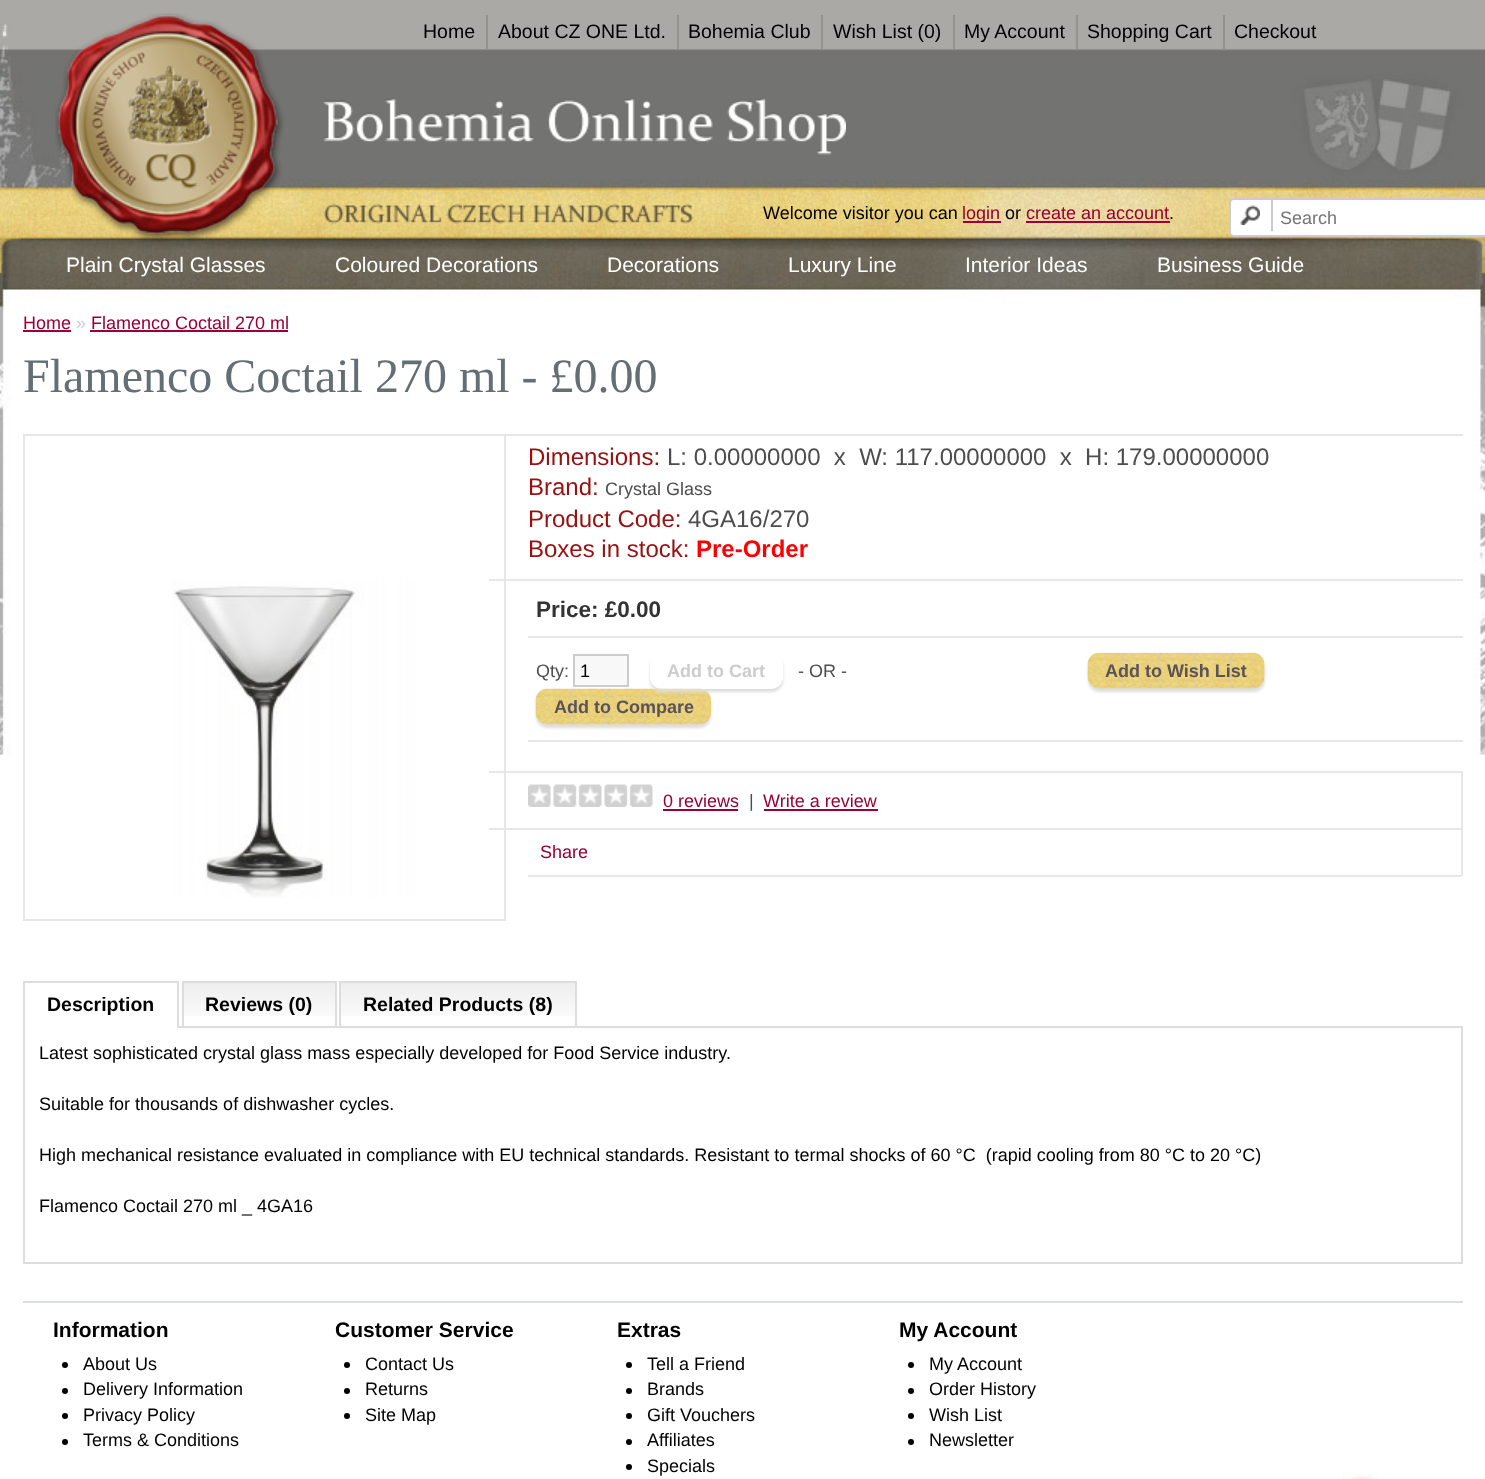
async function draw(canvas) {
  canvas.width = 1485
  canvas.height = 1479
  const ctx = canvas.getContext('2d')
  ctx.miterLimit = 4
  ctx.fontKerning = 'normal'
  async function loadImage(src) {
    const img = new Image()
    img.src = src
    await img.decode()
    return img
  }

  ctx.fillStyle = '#fff'
  ctx.fillRect(0, 0, 1485, 1479)
  ctx.drawImage(await loadImage('image0.png'), 0, 0, 1485, 755)
  ctx.drawImage(await loadImage('image1.png'), 55, 13, 791, 229)
  ctx.font = '19.5px Liberation Sans'
  ctx.fillStyle = '#000'
  ctx.fillText('Home', 423, 38)
  ctx.fillStyle = '#93928e'
  ctx.fillRect(486, 15, 2, 35)
  ctx.fillStyle = '#000'
  ctx.fillText('About CZ ONE Ltd.', 498, 38)
  ctx.fillStyle = '#93928e'
  ctx.fillRect(677, 15, 2, 35)
  ctx.fillStyle = '#000'
  ctx.fillText('Bohemia Club', 688, 38)
  ctx.fillStyle = '#93928e'
  ctx.fillRect(821, 15, 2, 35)
  ctx.fillStyle = '#000'
  ctx.fillText('Wish List (0)', 833, 38)
  ctx.fillStyle = '#93928e'
  ctx.fillRect(953, 15, 2, 35)
  ctx.fillStyle = '#000'
  ctx.fillText('My Account', 964, 38)
  ctx.fillStyle = '#93928e'
  ctx.fillRect(1076, 15, 2, 35)
  ctx.fillStyle = '#000'
  ctx.fillText('Shopping Cart', 1087, 38)
  ctx.fillStyle = '#93928e'
  ctx.fillRect(1223, 15, 2, 35)
  ctx.fillStyle = '#000'
  ctx.fillText('Checkout', 1234, 38)
  ctx.font = '18px Liberation Sans'
  ctx.fillText('Welcome visitor you can', 763, 219)
  ctx.fillStyle = '#903'
  ctx.fillRect(963, 221, 38, 2)
  ctx.fillText('login', 962, 219)
  ctx.fillStyle = '#000'
  ctx.fillText('or', 1005, 219)
  ctx.fillStyle = '#903'
  ctx.fillText('create an account', 1026, 219)
  ctx.fillRect(1026, 221, 144, 2)
  ctx.fillStyle = '#000'
  ctx.fillText('.', 1169, 219)
  ctx.fillStyle = '#fff'
  ctx.beginPath()
  ctx.roundRect(1230, 199, 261, 37, 4)
  ctx.fill()
  ctx.strokeStyle = '#ccc'
  ctx.lineWidth = 2
  ctx.stroke()
  ctx.drawImage(await loadImage('image2.png'), 1240, 205, 20, 20)
  ctx.fillStyle = '#ccc'
  ctx.fillRect(1271, 198, 2, 33)
  ctx.fillStyle = '#757575'
  ctx.fillText('Search', 1280, 224)
  ctx.font = '21px Liberation Sans'
  ctx.fillStyle = '#fff'
  ctx.fillText('Plain Crystal Glasses', 66, 272)
  ctx.fillText('Coloured Decorations', 335, 272)
  ctx.fillText('Decorations', 607, 272)
  ctx.fillText('Luxury Line', 788, 272)
  ctx.fillText('Interior Ideas', 965, 272)
  ctx.fillText('Business Guide', 1157, 272)
  ctx.font = '18px Liberation Sans'
  ctx.fillStyle = '#903'
  ctx.fillText('Home', 23, 329)
  ctx.fillRect(23, 330, 48, 2)
  ctx.fillStyle = '#ccc'
  ctx.fillText('»', 76, 329)
  ctx.fillStyle = '#903'
  ctx.fillText('Flamenco Coctail 270 ml', 91, 329)
  ctx.fillRect(90, 330, 198, 2)
  ctx.font = '48px Liberation Serif'
  ctx.fillStyle = '#636e75'
  ctx.fillText('Flamenco Coctail 270 ml - £0.00', 23, 392)
  ctx.fillStyle = '#e7e7e7'
  ctx.fillRect(489, 579, 974, 2)
  ctx.fillRect(489, 771, 974, 2)
  ctx.fillRect(489, 828, 972, 2)
  ctx.strokeStyle = '#e7e7e7'
  ctx.strokeRect(24, 435, 481, 485)
  ctx.drawImage(await loadImage('image3.png'), 173, 579, 316, 319)
  ctx.fillRect(506, 434, 957, 2)
  ctx.font = '24px Liberation Sans'
  ctx.fillStyle = '#981010'
  ctx.fillText('Dimensions:', 528, 465)
  ctx.fillStyle = '#4d4d4d'
  ctx.fillText('L: 0.00000000  x  W: 117.00000000  x  H: 179.00000000', 667, 465)
  ctx.fillStyle = '#981010'
  ctx.fillText('Brand:', 528, 495)
  ctx.font = '18px Liberation Sans'
  ctx.fillStyle = '#4d4d4d'
  ctx.fillText('Crystal Glass', 605, 495)
  ctx.font = '24px Liberation Sans'
  ctx.fillStyle = '#981010'
  ctx.fillText('Product Code:', 528, 527)
  ctx.fillStyle = '#4d4d4d'
  ctx.fillText('4GA16/270', 688, 527)
  ctx.fillStyle = '#981010'
  ctx.fillText('Boxes in stock:', 528, 557)
  ctx.font = 'bold 24px Liberation Sans'
  ctx.fillStyle = '#f00'
  ctx.fillText('Pre-Order', 696, 557)
  ctx.fillStyle = '#e7e7e7'
  ctx.fillRect(528, 636, 935, 2)
  ctx.font = 'bold 22.5px Liberation Sans'
  ctx.fillStyle = '#333'
  ctx.fillText('Price: £0.00', 536, 617)
  ctx.fillStyle = '#e7e7e7'
  ctx.fillRect(528, 740, 935, 2)
  ctx.font = '18px Liberation Sans'
  ctx.fillStyle = '#4d4d4d'
  ctx.fillText('Qty:', 536, 677)
  ctx.fillStyle = '#f8f8f8'
  ctx.beginPath()
  ctx.rect(574, 655, 54, 31)
  ctx.fill()
  ctx.strokeStyle = '#ccc'
  ctx.stroke()
  ctx.fillStyle = '#000'
  ctx.fillText('1', 580, 677)
  ctx.fillStyle = '#ddd'
  ctx.filter = 'blur(1.5px)'
  ctx.beginPath()
  ctx.roundRect(536, 692, 175, 36, 12)
  ctx.fill()
  ctx.filter = 'none'
  ctx.drawImage(await loadImage('image5.png'), 535, 688, 176, 37)
  ctx.save()
  ctx.beginPath()
  ctx.moveTo(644, 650)
  ctx.lineTo(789, 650)
  ctx.lineTo(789, 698)
  ctx.lineTo(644, 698)
  ctx.closePath()
  ctx.moveTo(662, 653)
  ctx.lineTo(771, 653)
  ctx.bezierCurveTo(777.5, 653, 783, 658.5, 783, 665)
  ctx.lineTo(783, 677)
  ctx.bezierCurveTo(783, 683.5, 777.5, 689, 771, 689)
  ctx.lineTo(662, 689)
  ctx.bezierCurveTo(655.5, 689, 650, 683.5, 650, 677)
  ctx.lineTo(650, 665)
  ctx.bezierCurveTo(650, 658.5, 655.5, 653, 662, 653)
  ctx.closePath()
  ctx.clip('evenodd')
  ctx.filter = 'blur(1.5px)'
  ctx.beginPath()
  ctx.roundRect(650, 656, 133, 36, 12)
  ctx.fill()
  ctx.filter = 'none'
  ctx.restore()
  ctx.font = 'bold 18px Liberation Sans'
  ctx.fillStyle = '#ccc'
  ctx.fillText('Add to Cart', 667, 677)
  ctx.font = '18px Liberation Sans'
  ctx.fillStyle = '#4d4d4d'
  ctx.fillText('- OR -', 798, 677)
  ctx.fillStyle = '#ddd'
  ctx.filter = 'blur(1.5px)'
  ctx.beginPath()
  ctx.roundRect(1088, 656, 177, 36, 12)
  ctx.fill()
  ctx.filter = 'none'
  ctx.drawImage(await loadImage('image4.png'), 1087, 652, 178, 37)
  ctx.font = 'bold 18px Liberation Sans'
  ctx.fillStyle = '#5b5358'
  ctx.fillText('Add to Wish List', 1105, 677)
  ctx.fillText('Add to Compare', 554, 713)
  ctx.fillStyle = '#e7e7e7'
  ctx.fillRect(1461, 771, 2, 105)
  ctx.drawImage(await loadImage('image6.png'), 528, 784, 125, 23)
  ctx.font = '18px Liberation Sans'
  ctx.fillStyle = '#903'
  ctx.fillText('0 reviews', 663, 807)
  ctx.fillRect(663, 809, 75, 2)
  ctx.fillStyle = '#4d4d4d'
  ctx.fillText('|', 749, 807)
  ctx.fillStyle = '#903'
  ctx.fillText('Write a review', 763, 807)
  ctx.fillRect(764, 809, 114, 2)
  ctx.fillStyle = '#e7e7e7'
  ctx.fillRect(528, 875, 933, 2)
  ctx.fillStyle = '#903'
  ctx.fillText('Share', 540, 858)
  ctx.fillStyle = '#ddd'
  ctx.fillRect(179, 1026, 1284, 2)
  ctx.fillRect(23, 981, 156, 2)
  ctx.fillRect(177, 981, 2, 47)
  ctx.fillRect(23, 981, 2, 47)
  ctx.font = 'bold 19.5px Liberation Sans'
  ctx.fillStyle = '#000'
  ctx.fillText('Description', 47, 1011)
  ctx.drawImage(await loadImage('image7.png'), 181, 982, 154, 34)
  ctx.fillStyle = '#ddd'
  ctx.fillRect(182, 981, 154, 2)
  ctx.fillRect(335, 981, 2, 45)
  ctx.fillRect(182, 981, 2, 45)
  ctx.fillStyle = '#000'
  ctx.fillText('Reviews (0)', 205, 1011)
  ctx.drawImage(await loadImage('image8.png'), 341, 983, 234, 33)
  ctx.fillStyle = '#ddd'
  ctx.fillRect(339, 981, 237, 2)
  ctx.fillRect(575, 981, 2, 45)
  ctx.fillRect(339, 981, 2, 45)
  ctx.fillStyle = '#000'
  ctx.fillText('Related Products (8)', 363, 1011)
  ctx.fillStyle = '#ddd'
  ctx.fillRect(1461, 1028, 2, 235)
  ctx.fillRect(23, 1262, 1440, 2)
  ctx.fillRect(23, 1028, 2, 235)
  ctx.font = '18px Liberation Sans'
  ctx.fillStyle = '#000'
  ctx.fillText('Latest sophisticated crystal glass mass especially developed for Food Service industry.', 39, 1059)
  ctx.fillText('Suitable for thousands of dishwasher cycles.', 39, 1110)
  ctx.fillText('High mechanical resistance evaluated in compliance with EU technical standards. Resistant to termal shocks of 60 °C  (rapid cooling from 80 °C to 20 °C)', 39, 1161)
  ctx.fillText('Flamenco Coctail 270 ml _ 4GA16', 39, 1212)
  ctx.drawImage(await loadImage('image9.png'), 1342, 1472, 37, 7)
  ctx.fillStyle = '#dbdee1'
  ctx.fillRect(23, 1301, 1440, 2)
  ctx.font = 'bold 21px Liberation Sans'
  ctx.fillStyle = '#000'
  ctx.fillText('Information', 53, 1337)
  ctx.beginPath()
  ctx.arc(65, 1365, 3, 0, 2 * Math.PI)
  ctx.fill()
  ctx.font = '18px Liberation Sans'
  ctx.fillText('About Us', 83, 1370)
  ctx.beginPath()
  ctx.arc(65, 1391, 3, 0, 2 * Math.PI)
  ctx.fill()
  ctx.fillText('Delivery Information', 83, 1395)
  ctx.beginPath()
  ctx.arc(65, 1416, 3, 0, 2 * Math.PI)
  ctx.fill()
  ctx.fillText('Privacy Policy', 83, 1421)
  ctx.beginPath()
  ctx.arc(65, 1442, 3, 0, 2 * Math.PI)
  ctx.fill()
  ctx.fillText('Terms & Conditions', 83, 1446)
  ctx.font = 'bold 21px Liberation Sans'
  ctx.fillText('Customer Service', 335, 1337)
  ctx.beginPath()
  ctx.arc(347, 1365, 3, 0, 2 * Math.PI)
  ctx.fill()
  ctx.font = '18px Liberation Sans'
  ctx.fillText('Contact Us', 365, 1370)
  ctx.beginPath()
  ctx.arc(347, 1391, 3, 0, 2 * Math.PI)
  ctx.fill()
  ctx.fillText('Returns', 365, 1395)
  ctx.beginPath()
  ctx.arc(347, 1416, 3, 0, 2 * Math.PI)
  ctx.fill()
  ctx.fillText('Site Map', 365, 1421)
  ctx.font = 'bold 21px Liberation Sans'
  ctx.fillText('Extras', 617, 1337)
  ctx.beginPath()
  ctx.arc(629, 1365, 3, 0, 2 * Math.PI)
  ctx.fill()
  ctx.font = '18px Liberation Sans'
  ctx.fillText('Tell a Friend', 647, 1370)
  ctx.beginPath()
  ctx.arc(629, 1391, 3, 0, 2 * Math.PI)
  ctx.fill()
  ctx.fillText('Brands', 647, 1395)
  ctx.beginPath()
  ctx.arc(629, 1416, 3, 0, 2 * Math.PI)
  ctx.fill()
  ctx.fillText('Gift Vouchers', 647, 1421)
  ctx.beginPath()
  ctx.arc(629, 1442, 3, 0, 2 * Math.PI)
  ctx.fill()
  ctx.fillText('Affiliates', 647, 1446)
  ctx.beginPath()
  ctx.arc(629, 1467, 3, 0, 2 * Math.PI)
  ctx.fill()
  ctx.fillText('Specials', 647, 1472)
  ctx.font = 'bold 21px Liberation Sans'
  ctx.fillText('My Account', 899, 1337)
  ctx.beginPath()
  ctx.arc(911, 1365, 3, 0, 2 * Math.PI)
  ctx.fill()
  ctx.font = '18px Liberation Sans'
  ctx.fillText('My Account', 929, 1370)
  ctx.beginPath()
  ctx.arc(911, 1391, 3, 0, 2 * Math.PI)
  ctx.fill()
  ctx.fillText('Order History', 929, 1395)
  ctx.beginPath()
  ctx.arc(911, 1416, 3, 0, 2 * Math.PI)
  ctx.fill()
  ctx.fillText('Wish List', 929, 1421)
  ctx.beginPath()
  ctx.arc(911, 1442, 3, 0, 2 * Math.PI)
  ctx.fill()
  ctx.fillText('Newsletter', 929, 1446)
}

draw(document.querySelector('canvas'))
